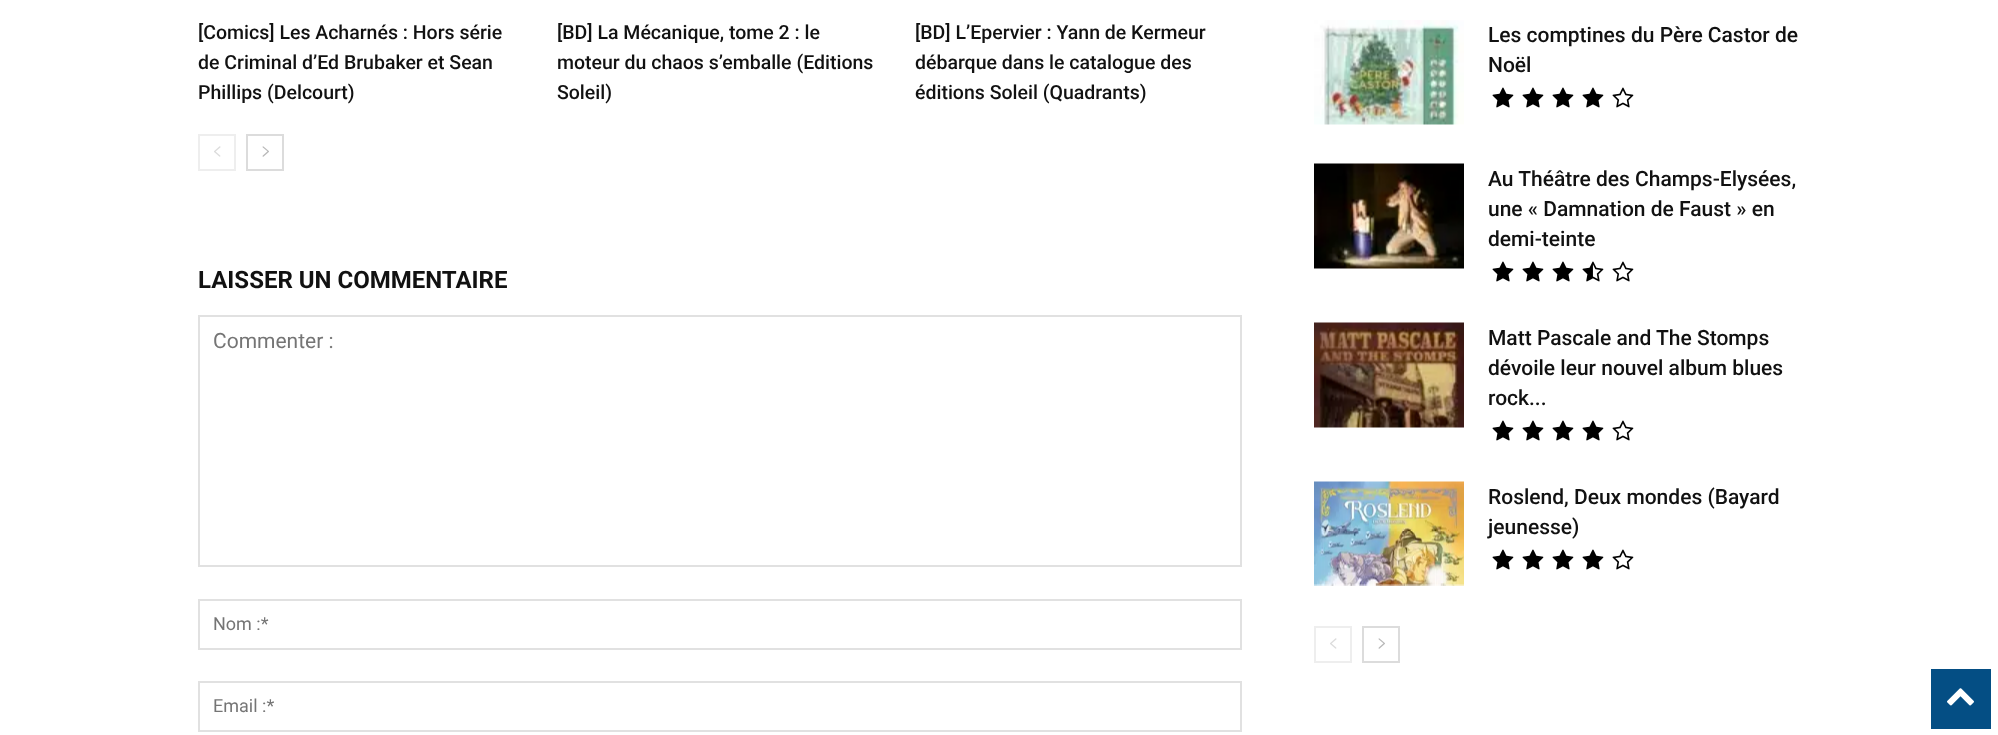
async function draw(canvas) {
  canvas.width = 1998
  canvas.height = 735
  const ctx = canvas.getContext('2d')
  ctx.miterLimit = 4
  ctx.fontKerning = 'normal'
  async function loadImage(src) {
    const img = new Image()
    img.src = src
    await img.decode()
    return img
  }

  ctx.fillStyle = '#fff'
  ctx.fillRect(0, 0, 1998, 735)
  ctx.font = '500 19.5px Roboto'
  ctx.fillStyle = '#111'
  ctx.fillText('[Comics] Les Acharnés : Hors série', 198, 39)
  ctx.fillText('de Criminal d’Ed Brubaker et Sean', 198, 69)
  ctx.fillText('Phillips (Delcourt)', 198, 99)
  ctx.fillText('[BD] La Mécanique, tome 2 : le', 557, 39)
  ctx.fillText('moteur du chaos s’emballe (Editions', 557, 69)
  ctx.fillText('Soleil)', 557, 99)
  ctx.fillText('[BD] L’Epervier : Yann de Kermeur', 915, 39)
  ctx.fillText('débarque dans le catalogue des', 915, 69)
  ctx.fillText('éditions Soleil (Quadrants)', 915, 99)
  ctx.strokeStyle = '#eee'
  ctx.lineWidth = 2
  ctx.strokeRect(199, 135, 36, 35)
  ctx.drawImage(await loadImage('image0.png'), 214, 146, 7, 11)
  ctx.strokeStyle = '#dcdcdc'
  ctx.strokeRect(247, 135, 36, 35)
  ctx.drawImage(await loadImage('image1.png'), 262, 146, 7, 11)
  ctx.font = 'bold 24px Roboto'
  ctx.fillText('LAISSER UN COMMENTAIRE', 198, 288)
  ctx.strokeStyle = '#e1e1e1'
  ctx.strokeRect(199, 316, 1042, 250)
  ctx.font = '21px Roboto'
  ctx.fillStyle = '#757575'
  ctx.fillText('Commenter :', 213, 348)
  ctx.strokeRect(199, 600, 1042, 49)
  ctx.font = '18px Roboto'
  ctx.fillText('Nom :*', 213, 630)
  ctx.strokeRect(199, 682, 1042, 49)
  ctx.fillText('Email :*', 213, 712)
  ctx.drawImage(await loadImage('image2.png'), 1314, 20, 150, 105)
  ctx.font = '500 21px Roboto'
  ctx.fillStyle = '#111'
  ctx.fillText('Les comptines du Père Castor de', 1488, 42)
  ctx.fillText('Noël', 1488, 72)
  ctx.drawImage(await loadImage('image3.png'), 1492, 87, 22, 21)
  ctx.drawImage(await loadImage('image3.png'), 1522, 87, 22, 21)
  ctx.drawImage(await loadImage('image3.png'), 1552, 87, 22, 21)
  ctx.drawImage(await loadImage('image3.png'), 1582, 87, 22, 21)
  ctx.drawImage(await loadImage('image4.png'), 1612, 87, 22, 21)
  ctx.drawImage(await loadImage('image5.png'), 1314, 163, 150, 106)
  ctx.fillText('Au Théâtre des Champs-Elysées,', 1488, 186)
  ctx.fillText('une « Damnation de Faust » en', 1488, 216)
  ctx.fillText('demi-teinte', 1488, 246)
  ctx.drawImage(await loadImage('image3.png'), 1492, 261, 22, 21)
  ctx.drawImage(await loadImage('image3.png'), 1522, 261, 22, 21)
  ctx.drawImage(await loadImage('image3.png'), 1552, 261, 22, 21)
  ctx.drawImage(await loadImage('image6.png'), 1582, 261, 22, 21)
  ctx.drawImage(await loadImage('image4.png'), 1612, 261, 22, 21)
  ctx.drawImage(await loadImage('image7.png'), 1314, 322, 150, 106)
  ctx.fillText('Matt Pascale and The Stomps', 1488, 345)
  ctx.fillText('dévoile leur nouvel album blues', 1488, 375)
  ctx.fillText('rock...', 1488, 405)
  ctx.drawImage(await loadImage('image3.png'), 1492, 420, 22, 21)
  ctx.drawImage(await loadImage('image3.png'), 1522, 420, 22, 21)
  ctx.drawImage(await loadImage('image3.png'), 1552, 420, 22, 21)
  ctx.drawImage(await loadImage('image3.png'), 1582, 420, 22, 21)
  ctx.drawImage(await loadImage('image4.png'), 1612, 420, 22, 21)
  ctx.drawImage(await loadImage('image8.png'), 1314, 481, 150, 105)
  ctx.fillText('Roslend, Deux mondes (Bayard', 1488, 504)
  ctx.fillText('jeunesse)', 1488, 534)
  ctx.drawImage(await loadImage('image3.png'), 1492, 549, 22, 21)
  ctx.drawImage(await loadImage('image3.png'), 1522, 549, 22, 21)
  ctx.drawImage(await loadImage('image3.png'), 1552, 549, 22, 21)
  ctx.drawImage(await loadImage('image3.png'), 1582, 549, 22, 21)
  ctx.drawImage(await loadImage('image4.png'), 1612, 549, 22, 21)
  ctx.strokeStyle = '#eee'
  ctx.strokeRect(1315, 627, 36, 35)
  ctx.drawImage(await loadImage('image0.png'), 1330, 638, 7, 11)
  ctx.strokeStyle = '#dcdcdc'
  ctx.strokeRect(1363, 627, 36, 35)
  ctx.drawImage(await loadImage('image1.png'), 1378, 638, 7, 11)
  ctx.fillStyle = '#044e84'
  ctx.fillRect(1931, 669, 60, 60)
  ctx.drawImage(await loadImage('image9.png'), 1947, 688, 27, 18)
}

draw(document.querySelector('canvas'))
